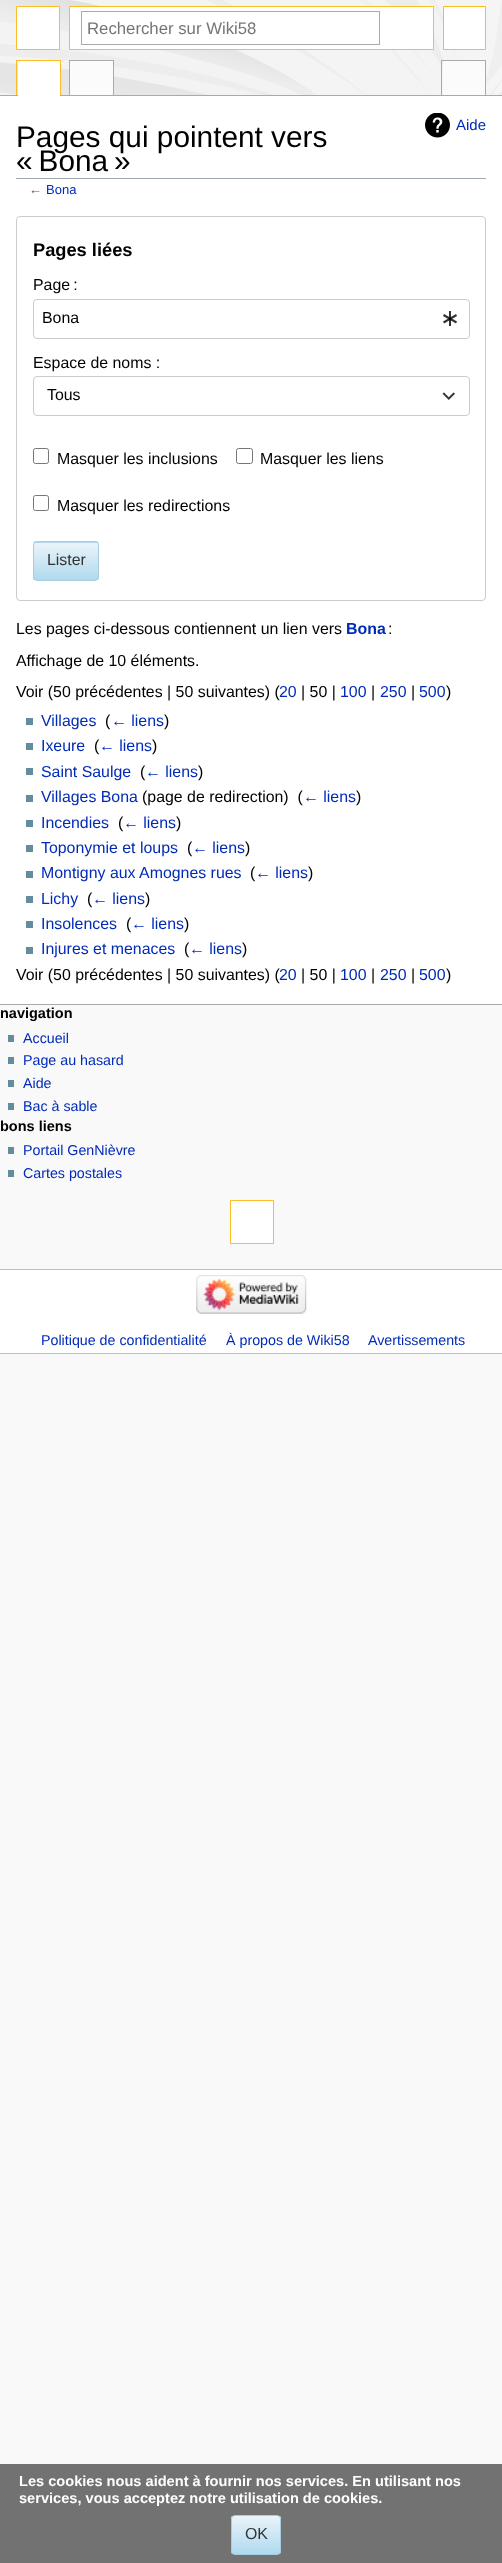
async function draw(canvas) {
  canvas.width = 502
  canvas.height = 2563
  const ctx = canvas.getContext('2d')
  ctx.miterLimit = 4
  ctx.fontKerning = 'normal'
  async function loadImage(src) {
    const img = new Image()
    img.src = src
    await img.decode()
    return img
  }
  let gradient

  ctx.fillStyle = '#f9f9f9'
  ctx.fillRect(0, 0, 502, 2563)
  ctx.drawImage(await loadImage('image0.png'), 0, 0, 502, 95)
  ctx.fillStyle = '#fff'
  ctx.beginPath()
  ctx.rect(16.5, 6.5, 43, 43)
  ctx.fill()
  ctx.strokeStyle = '#fabd23'
  ctx.stroke()
  ctx.beginPath()
  ctx.rect(443.5, 6.5, 42, 43)
  ctx.fill()
  ctx.stroke()
  ctx.beginPath()
  ctx.rect(69.5, 6.5, 364, 43)
  ctx.fill()
  ctx.stroke()
  ctx.strokeStyle = '#aaa'
  ctx.strokeRect(81.5, 11.5, 298, 33)
  ctx.font = '16.75px Liberation Sans'
  ctx.fillStyle = '#757575'
  ctx.fillText('Rechercher sur Wiki58', 87, 34)
  ctx.font = 'bold 14.5px Liberation Sans'
  ctx.fillStyle = '#000'
  ctx.fillText('navigation', 0, 1018)
  ctx.fillStyle = '#638c9c'
  ctx.fillRect(8, 1035, 6, 7)
  ctx.font = '14.25px Liberation Sans'
  ctx.fillStyle = '#002bb8'
  ctx.fillText('Accueil', 23, 1043)
  ctx.fillStyle = '#638c9c'
  ctx.fillRect(8, 1057, 6, 7)
  ctx.fillStyle = '#002bb8'
  ctx.fillText('Page au hasard', 23, 1065)
  ctx.fillStyle = '#638c9c'
  ctx.fillRect(8, 1080, 6, 7)
  ctx.fillStyle = '#002bb8'
  ctx.fillText('Aide', 23, 1088)
  ctx.fillStyle = '#638c9c'
  ctx.fillRect(8, 1103, 6, 7)
  ctx.fillStyle = '#002bb8'
  ctx.fillText('Bac à sable', 23, 1111)
  ctx.font = 'bold 14.5px Liberation Sans'
  ctx.fillStyle = '#000'
  ctx.fillText('bons liens', 0, 1131)
  ctx.fillStyle = '#638c9c'
  ctx.fillRect(8, 1147, 6, 7)
  ctx.font = '14.25px Liberation Sans'
  ctx.fillStyle = '#002bb8'
  ctx.fillText('Portail GenNièvre', 23, 1155)
  ctx.fillStyle = '#638c9c'
  ctx.fillRect(8, 1170, 6, 7)
  ctx.fillStyle = '#002bb8'
  ctx.fillText('Cartes postales', 23, 1178)
  ctx.fillStyle = '#fabd23'
  ctx.fillRect(16, 60, 45, 1)
  ctx.fillRect(60, 60, 1, 36)
  ctx.fillRect(16, 60, 1, 36)
  ctx.fillStyle = '#aaa'
  ctx.fillRect(69, 60, 45, 1)
  ctx.fillRect(113, 60, 1, 36)
  ctx.fillRect(69, 60, 1, 36)
  ctx.fillRect(441, 60, 45, 1)
  ctx.fillRect(485, 60, 1, 36)
  ctx.fillRect(441, 60, 1, 36)
  ctx.fillRect(0, 95, 502, 1)
  ctx.fillStyle = '#fff'
  ctx.fillRect(18, 61, 42, 35)
  ctx.fillStyle = '#fbfbfb'
  ctx.fillRect(70, 61, 43, 34)
  ctx.fillRect(443, 61, 42, 34)
  ctx.fillStyle = '#fff'
  ctx.beginPath()
  ctx.rect(230.5, 1200.5, 43, 43)
  ctx.fill()
  ctx.strokeStyle = '#fabd23'
  ctx.stroke()
  ctx.fillRect(0, 96, 502, 908)
  ctx.fillStyle = '#aaa'
  ctx.fillRect(0, 1004, 502, 1)
  ctx.fillStyle = '#a2a9b1'
  ctx.fillRect(16, 178, 470, 1)
  ctx.font = '29.8px Liberation Sans'
  ctx.fillStyle = '#000'
  ctx.fillText('Pages qui pointent vers', 16, 147)
  ctx.fillText('« Bona »', 16, 171)
  ctx.drawImage(await loadImage('image1.png'), 425, 113, 25, 25)
  ctx.font = '15px Liberation Sans'
  ctx.fillStyle = '#002bb8'
  ctx.fillText('Aide', 456, 130)
  ctx.font = '13px Liberation Sans'
  ctx.fillStyle = '#54595d'
  ctx.fillText('←', 29, 194)
  ctx.fillStyle = '#002bb8'
  ctx.fillText('Bona', 46, 194)
  ctx.beginPath()
  ctx.roundRect(16.5, 216.5, 469, 384, 3.5)
  ctx.strokeStyle = '#ccc'
  ctx.stroke()
  ctx.font = 'bold 18.25px Liberation Sans'
  ctx.fillStyle = '#000'
  ctx.fillText('Pages liées', 33, 256)
  ctx.font = '15.9px Liberation Sans'
  ctx.fillText('Page :', 33, 290)
  ctx.beginPath()
  ctx.roundRect(33.5, 299.5, 436, 39, 3.5)
  ctx.stroke()
  ctx.fillText('Bona', 42, 323)
  ctx.drawImage(await loadImage('image2.png'), 443, 311, 14, 15)
  ctx.fillText('Espace de noms :', 33, 368)
  ctx.beginPath()
  ctx.roundRect(33.5, 376.5, 436, 39, 3.5)
  ctx.stroke()
  ctx.fillText('Tous', 47, 400)
  ctx.drawImage(await loadImage('image3.png'), 442, 392, 13, 8)
  ctx.beginPath()
  ctx.roundRect(33.5, 448.5, 15, 15, 2)
  ctx.strokeStyle = '#767676'
  ctx.stroke()
  ctx.fillText('Masquer les inclusions', 57, 464)
  ctx.beginPath()
  ctx.roundRect(236.5, 448.5, 16, 15, 2)
  ctx.stroke()
  ctx.fillText('Masquer les liens', 260, 464)
  ctx.beginPath()
  ctx.roundRect(33.5, 495.5, 15, 15, 2)
  ctx.stroke()
  ctx.fillText('Masquer les redirections', 57, 511)
  ctx.save()
  ctx.beginPath()
  ctx.roundRect(33, 541, 66, 40, 4)
  ctx.clip()
  gradient = ctx.createLinearGradient(66, 505, 66, 543)
  gradient.addColorStop(0, '#eaf4fa')
  gradient.addColorStop(1, '#b0d9ee')
  ctx.fillStyle = gradient
  ctx.fillRect(33, 541, 66, 2)
  gradient = ctx.createLinearGradient(66, 543, 66, 580)
  gradient.addColorStop(0, '#eaf4fa')
  gradient.addColorStop(1, '#b0d9ee')
  ctx.fillStyle = gradient
  ctx.fillRect(33, 543, 66, 37)
  ctx.restore()
  ctx.beginPath()
  ctx.roundRect(33.5, 541.5, 65, 39, 3.5)
  ctx.strokeStyle = '#a6cee1'
  ctx.stroke()
  ctx.fillStyle = '#333'
  ctx.fillText('Lister', 47, 565)
  ctx.fillStyle = '#000'
  ctx.fillText('Les pages ci-dessous contiennent un lien vers', 16, 634)
  ctx.font = 'bold 15.9px Liberation Sans'
  ctx.fillStyle = '#002bb8'
  ctx.fillText('Bona', 346, 634)
  ctx.font = '15.9px Liberation Sans'
  ctx.fillStyle = '#000'
  ctx.fillText(':', 388, 634)
  ctx.fillText('Affichage de 10 éléments.', 16, 666)
  ctx.fillText('Voir (50 précédentes | 50 suivantes) (', 16, 697)
  ctx.fillStyle = '#002bb8'
  ctx.fillText('20', 279, 697)
  ctx.fillStyle = '#000'
  ctx.fillText('| 50 |', 301, 697)
  ctx.fillStyle = '#002bb8'
  ctx.fillText('100', 340, 697)
  ctx.fillStyle = '#000'
  ctx.fillText('|', 371, 697)
  ctx.fillStyle = '#002bb8'
  ctx.fillText('250', 380, 697)
  ctx.fillStyle = '#000'
  ctx.fillText('|', 411, 697)
  ctx.fillStyle = '#002bb8'
  ctx.fillText('500', 419, 697)
  ctx.fillStyle = '#000'
  ctx.fillText(')', 446, 697)
  ctx.fillStyle = '#638c9c'
  ctx.fillRect(26, 718, 7, 7)
  ctx.fillStyle = '#002bb8'
  ctx.fillText('Villages', 41, 726)
  ctx.fillStyle = '#000'
  ctx.fillText('(', 105, 726)
  ctx.fillStyle = '#002bb8'
  ctx.fillText('← liens', 111, 726)
  ctx.fillStyle = '#000'
  ctx.fillText(')', 164, 726)
  ctx.fillStyle = '#638c9c'
  ctx.fillRect(26, 743, 7, 7)
  ctx.fillStyle = '#002bb8'
  ctx.fillText('Ixeure', 41, 751)
  ctx.fillStyle = '#000'
  ctx.fillText('(', 94, 751)
  ctx.fillStyle = '#002bb8'
  ctx.fillText('← liens', 99, 751)
  ctx.fillStyle = '#000'
  ctx.fillText(')', 152, 751)
  ctx.fillStyle = '#638c9c'
  ctx.fillRect(26, 768, 7, 7)
  ctx.fillStyle = '#002bb8'
  ctx.fillText('Saint Saulge', 41, 777)
  ctx.fillStyle = '#000'
  ctx.fillText('(', 140, 777)
  ctx.fillStyle = '#002bb8'
  ctx.fillText('← liens', 145, 777)
  ctx.fillStyle = '#000'
  ctx.fillText(')', 198, 777)
  ctx.fillStyle = '#638c9c'
  ctx.fillRect(26, 795, 7, 7)
  ctx.fillStyle = '#002bb8'
  ctx.fillText('Villages Bona', 41, 802)
  ctx.fillStyle = '#000'
  ctx.fillText('(page de redirection)  (', 142, 802)
  ctx.fillStyle = '#002bb8'
  ctx.fillText('← liens', 303, 802)
  ctx.fillStyle = '#000'
  ctx.fillText(')', 356, 802)
  ctx.fillStyle = '#638c9c'
  ctx.fillRect(26, 820, 7, 7)
  ctx.fillStyle = '#002bb8'
  ctx.fillText('Incendies', 41, 828)
  ctx.fillStyle = '#000'
  ctx.fillText('(', 118, 828)
  ctx.fillStyle = '#002bb8'
  ctx.fillText('← liens', 123, 828)
  ctx.fillStyle = '#000'
  ctx.fillText(')', 176, 828)
  ctx.fillStyle = '#638c9c'
  ctx.fillRect(26, 845, 7, 7)
  ctx.fillStyle = '#002bb8'
  ctx.fillText('Toponymie et loups', 41, 853)
  ctx.fillStyle = '#000'
  ctx.fillText('(', 187, 853)
  ctx.fillStyle = '#002bb8'
  ctx.fillText('← liens', 192, 853)
  ctx.fillStyle = '#000'
  ctx.fillText(')', 245, 853)
  ctx.fillStyle = '#638c9c'
  ctx.fillRect(26, 871, 7, 7)
  ctx.fillStyle = '#002bb8'
  ctx.fillText('Montigny aux Amognes rues', 41, 878)
  ctx.fillStyle = '#000'
  ctx.fillText('(', 250, 878)
  ctx.fillStyle = '#002bb8'
  ctx.fillText('← liens', 255, 878)
  ctx.fillStyle = '#000'
  ctx.fillText(')', 308, 878)
  ctx.fillStyle = '#638c9c'
  ctx.fillRect(26, 896, 7, 7)
  ctx.fillStyle = '#002bb8'
  ctx.fillText('Lichy', 41, 904)
  ctx.fillStyle = '#000'
  ctx.fillText('(', 87, 904)
  ctx.fillStyle = '#002bb8'
  ctx.fillText('← liens', 92, 904)
  ctx.fillStyle = '#000'
  ctx.fillText(')', 145, 904)
  ctx.fillStyle = '#638c9c'
  ctx.fillRect(26, 921, 7, 7)
  ctx.fillStyle = '#002bb8'
  ctx.fillText('Insolences', 41, 929)
  ctx.fillStyle = '#000'
  ctx.fillText('(', 126, 929)
  ctx.fillStyle = '#002bb8'
  ctx.fillText('← liens', 131, 929)
  ctx.fillStyle = '#000'
  ctx.fillText(')', 184, 929)
  ctx.fillStyle = '#638c9c'
  ctx.fillRect(26, 947, 7, 7)
  ctx.fillStyle = '#002bb8'
  ctx.fillText('Injures et menaces', 41, 954)
  ctx.fillStyle = '#000'
  ctx.fillText('(', 184, 954)
  ctx.fillStyle = '#002bb8'
  ctx.fillText('← liens', 189, 954)
  ctx.fillStyle = '#000'
  ctx.fillText(')', 242, 954)
  ctx.fillText('Voir (50 précédentes | 50 suivantes) (', 16, 980)
  ctx.fillStyle = '#002bb8'
  ctx.fillText('20', 279, 980)
  ctx.fillStyle = '#000'
  ctx.fillText('| 50 |', 301, 980)
  ctx.fillStyle = '#002bb8'
  ctx.fillText('100', 340, 980)
  ctx.fillStyle = '#000'
  ctx.fillText('|', 371, 980)
  ctx.fillStyle = '#002bb8'
  ctx.fillText('250', 380, 980)
  ctx.fillStyle = '#000'
  ctx.fillText('|', 411, 980)
  ctx.fillStyle = '#002bb8'
  ctx.fillText('500', 419, 980)
  ctx.fillStyle = '#000'
  ctx.fillText(')', 446, 980)
  ctx.fillStyle = '#727272'
  ctx.fillRect(0, 2464, 502, 99)
  ctx.font = 'bold 14.6px Liberation Sans'
  ctx.fillStyle = '#fff'
  ctx.fillText('Les cookies nous aident à fournir nos services. En utilisant nos', 19, 2486)
  ctx.fillText('services, vous acceptez notre utilisation de cookies.', 19, 2503)
  ctx.save()
  ctx.beginPath()
  ctx.roundRect(231, 2515, 50, 40, 4)
  ctx.clip()
  gradient = ctx.createLinearGradient(256, 2516, 256, 2554)
  gradient.addColorStop(0, '#eaf4fa')
  gradient.addColorStop(1, '#b0d9ee')
  ctx.fillStyle = gradient
  ctx.fillRect(231, 2516, 50, 38)
  ctx.restore()
  ctx.beginPath()
  ctx.roundRect(231.5, 2515.5, 49, 39, 3.5)
  ctx.stroke()
  ctx.font = '15.9px Liberation Sans'
  ctx.fillStyle = '#333'
  ctx.fillText('OK', 245, 2539)
  ctx.fillStyle = '#fff'
  ctx.fillRect(0, 1270, 502, 83)
  ctx.fillStyle = '#fabd23'
  ctx.fillRect(0, 1269, 502, 1)
  ctx.fillRect(0, 1353, 502, 1)
  ctx.drawImage(await loadImage('image4.png'), 196, 1275, 111, 39)
  ctx.font = '14.25px Liberation Sans'
  ctx.fillStyle = '#002bb8'
  ctx.fillText('Politique de confidentialité', 41, 1345)
  ctx.fillText('À propos de Wiki58', 226, 1345)
  ctx.fillText('Avertissements', 368, 1345)
}

draw(document.querySelector('canvas'))
